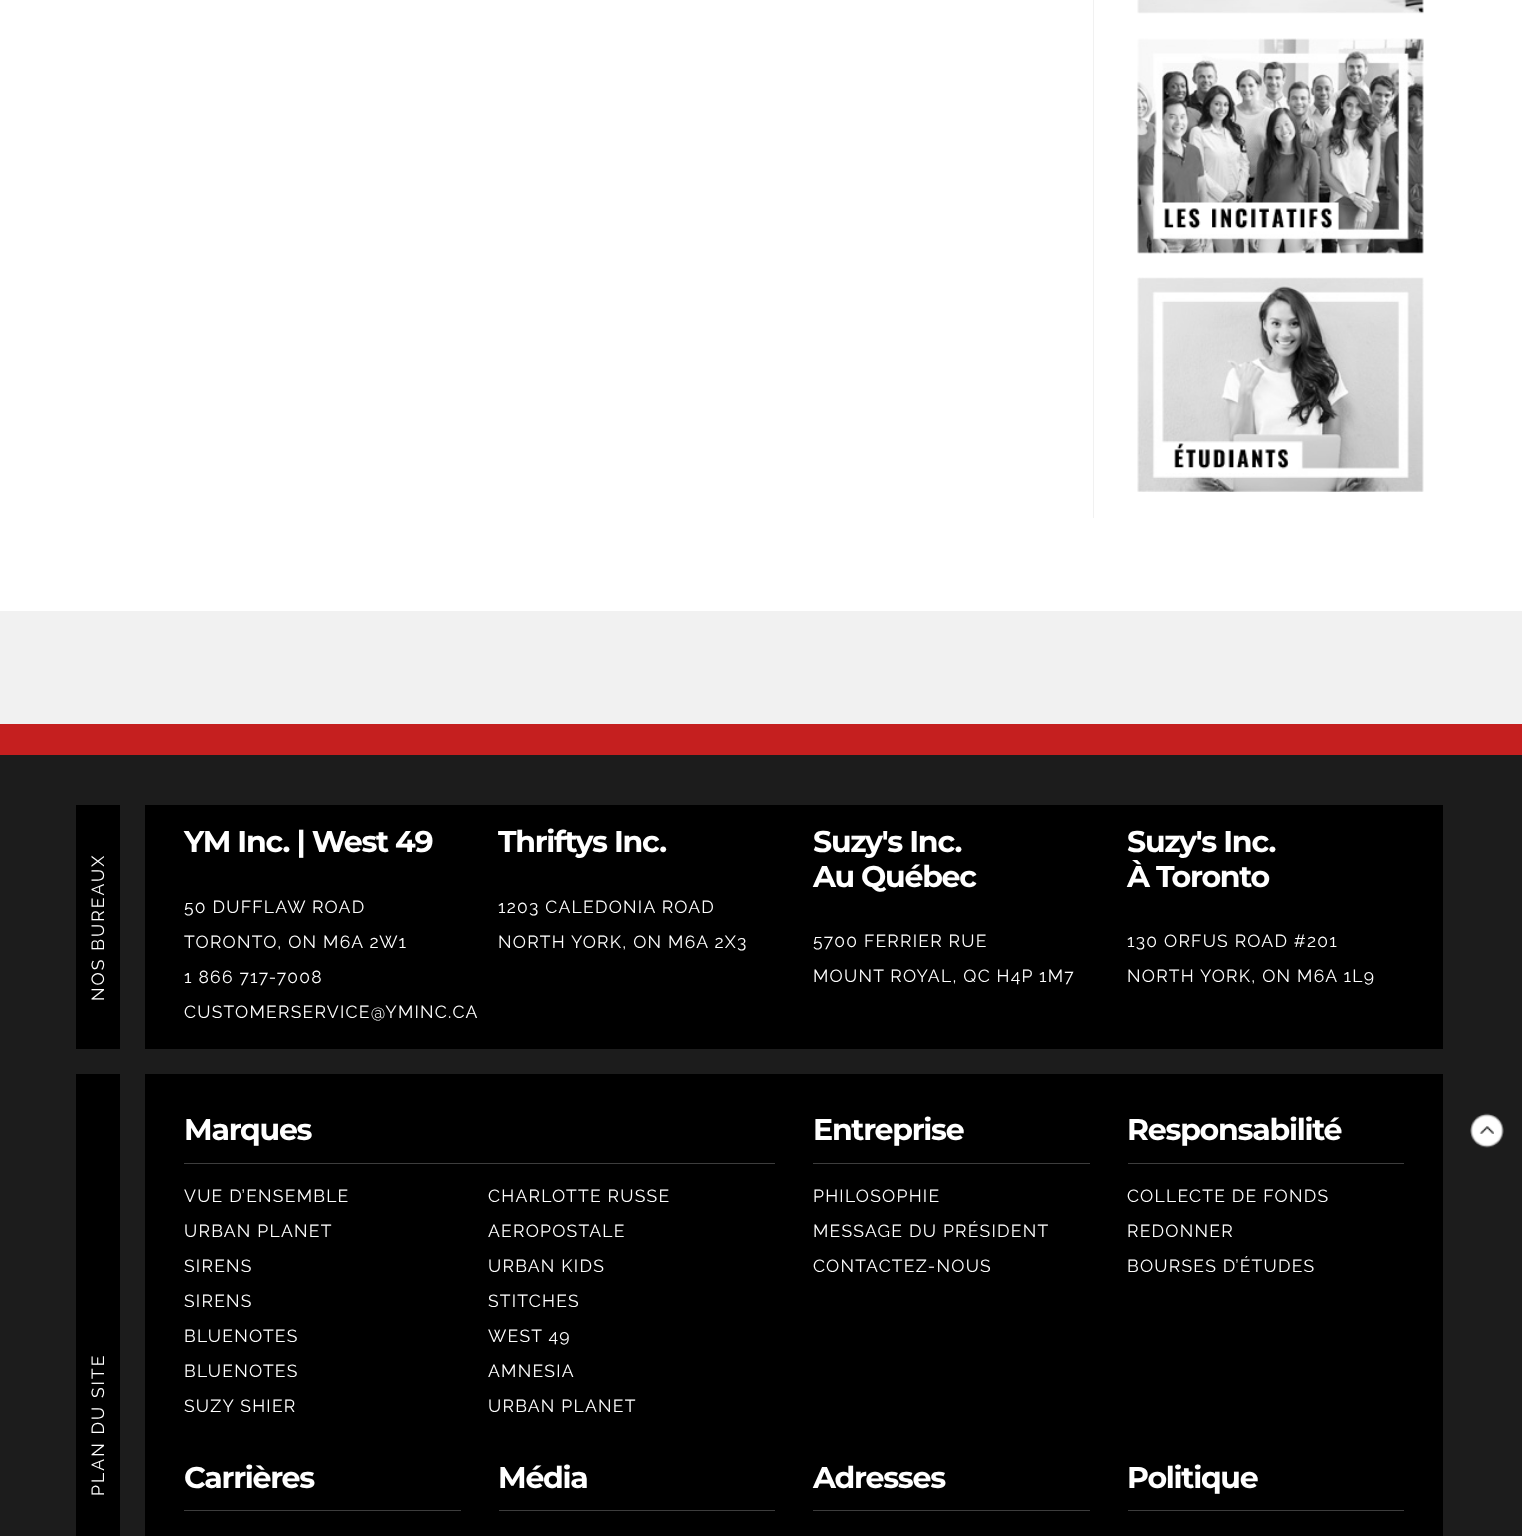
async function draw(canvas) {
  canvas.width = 1522
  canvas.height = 1536
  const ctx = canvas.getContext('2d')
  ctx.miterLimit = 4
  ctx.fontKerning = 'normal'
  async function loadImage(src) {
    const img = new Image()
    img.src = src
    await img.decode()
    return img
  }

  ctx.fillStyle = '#fff'
  ctx.fillRect(0, 0, 1522, 1536)
  ctx.fillStyle = '#f1f1f1'
  ctx.fillRect(1093, 0, 1, 518)
  ctx.drawImage(await loadImage('image0.png'), 1137, 0, 287, 14)
  ctx.drawImage(await loadImage('image1.png'), 1137, 38, 287, 216)
  ctx.drawImage(await loadImage('image2.png'), 1137, 277, 287, 215)
  ctx.fillRect(0, 611, 1522, 113)
  ctx.fillStyle = '#c51f1f'
  ctx.fillRect(0, 724, 1522, 31)
  ctx.fillStyle = '#1c1c1c'
  ctx.fillRect(0, 755, 1522, 781)
  ctx.fillStyle = '#000'
  ctx.fillRect(76, 805, 44, 244)
  ctx.letterSpacing = '2.1px'
  ctx.font = '17.5px Raleway'
  ctx.fillStyle = '#fff'
  ctx.save()
  ctx.translate(104, 1001)
  ctx.rotate(-90 * Math.PI / 180)
  ctx.fillText('NOS BUREAUX', 0, 0)
  ctx.restore()
  ctx.fillStyle = '#000'
  ctx.fillRect(145, 805, 1298, 244)
  ctx.letterSpacing = '-1.25px'
  ctx.font = '100 30px Montserrat'
  ctx.fillStyle = '#fff'
  ctx.fillText('YM Inc. | West 49', 184, 852)
  ctx.letterSpacing = '1.25px'
  ctx.font = '17.5px Raleway'
  ctx.fillText('50 DUFFLAW ROAD', 184, 913)
  ctx.fillText('TORONTO, ON M6A 2W1', 184, 948)
  ctx.fillText('1 866 717-7008', 184, 983)
  ctx.fillText('CUSTOMERSERVICE@YMINC.CA', 184, 1018)
  ctx.letterSpacing = '-1.25px'
  ctx.font = '100 30px Montserrat'
  ctx.fillText('Thriftys Inc.', 498, 852)
  ctx.letterSpacing = '1.25px'
  ctx.font = '17.5px Raleway'
  ctx.fillText('1203 CALEDONIA ROAD', 498, 913)
  ctx.fillText('NORTH YORK, ON M6A 2X3', 498, 948)
  ctx.letterSpacing = '-1.25px'
  ctx.font = '100 30px Montserrat'
  ctx.fillText('Suzy\'s Inc.', 813, 852)
  ctx.fillText('Au Québec', 813, 887)
  ctx.letterSpacing = '1.25px'
  ctx.font = '17.5px Raleway'
  ctx.fillText('5700 FERRIER RUE', 813, 947)
  ctx.fillText('MOUNT ROYAL, QC H4P 1M7', 813, 982)
  ctx.letterSpacing = '-1.25px'
  ctx.font = '100 30px Montserrat'
  ctx.fillText('Suzy\'s Inc.', 1127, 852)
  ctx.fillText('À Toronto', 1127, 887)
  ctx.letterSpacing = '1.25px'
  ctx.font = '17.5px Raleway'
  ctx.fillText('130 ORFUS ROAD #201', 1127, 947)
  ctx.fillText('NORTH YORK, ON M6A 1L9', 1127, 982)
  ctx.fillStyle = '#000'
  ctx.fillRect(76, 1074, 44, 462)
  ctx.letterSpacing = '2.1px'
  ctx.fillStyle = '#fff'
  ctx.save()
  ctx.translate(104, 1496)
  ctx.rotate(-90 * Math.PI / 180)
  ctx.fillText('PLAN DU SITE', 0, 0)
  ctx.restore()
  ctx.fillStyle = '#000'
  ctx.fillRect(145, 1074, 1298, 462)
  ctx.fillStyle = '#3d3d3d'
  ctx.fillRect(184, 1163, 591, 1)
  ctx.letterSpacing = '-1.25px'
  ctx.font = '100 30px Montserrat'
  ctx.fillStyle = '#fff'
  ctx.fillText('Marques', 184, 1140)
  ctx.letterSpacing = '1.25px'
  ctx.font = '17.5px Raleway'
  ctx.fillText('VUE D’ENSEMBLE', 184, 1202)
  ctx.fillText('CHARLOTTE RUSSE', 488, 1202)
  ctx.fillText('URBAN PLANET', 184, 1237)
  ctx.fillText('AEROPOSTALE', 488, 1237)
  ctx.fillText('SIRENS', 184, 1272)
  ctx.fillText('URBAN KIDS', 488, 1272)
  ctx.fillText('SIRENS', 184, 1307)
  ctx.fillText('STITCHES', 488, 1307)
  ctx.fillText('BLUENOTES', 184, 1342)
  ctx.fillText('WEST 49', 488, 1342)
  ctx.fillText('BLUENOTES', 184, 1377)
  ctx.fillText('AMNESIA', 488, 1377)
  ctx.fillText('SUZY SHIER', 184, 1412)
  ctx.fillText('URBAN PLANET', 488, 1412)
  ctx.fillStyle = '#3d3d3d'
  ctx.fillRect(813, 1163, 277, 1)
  ctx.letterSpacing = '-1.25px'
  ctx.font = '100 30px Montserrat'
  ctx.fillStyle = '#fff'
  ctx.fillText('Entreprise', 813, 1140)
  ctx.letterSpacing = '1.25px'
  ctx.font = '17.5px Raleway'
  ctx.fillText('PHILOSOPHIE', 813, 1202)
  ctx.fillText('MESSAGE DU PRÉSIDENT', 813, 1237)
  ctx.fillText('CONTACTEZ-NOUS', 813, 1272)
  ctx.fillStyle = '#3d3d3d'
  ctx.fillRect(1128, 1163, 276, 1)
  ctx.letterSpacing = '-1.25px'
  ctx.font = '100 30px Montserrat'
  ctx.fillStyle = '#fff'
  ctx.fillText('Responsabilité', 1127, 1140)
  ctx.letterSpacing = '1.25px'
  ctx.font = '17.5px Raleway'
  ctx.fillText('COLLECTE DE FONDS', 1127, 1202)
  ctx.fillText('REDONNER', 1127, 1237)
  ctx.fillText('BOURSES D’ÉTUDES', 1127, 1272)
  ctx.fillStyle = '#3d3d3d'
  ctx.fillRect(184, 1510, 277, 1)
  ctx.letterSpacing = '-1.25px'
  ctx.font = '100 30px Montserrat'
  ctx.fillStyle = '#fff'
  ctx.fillText('Carrières', 184, 1488)
  ctx.fillStyle = '#3d3d3d'
  ctx.fillRect(499, 1510, 276, 1)
  ctx.fillStyle = '#fff'
  ctx.fillText('Média', 498, 1488)
  ctx.fillStyle = '#3d3d3d'
  ctx.fillRect(813, 1510, 277, 1)
  ctx.fillStyle = '#fff'
  ctx.fillText('Adresses', 813, 1488)
  ctx.fillStyle = '#3d3d3d'
  ctx.fillRect(1128, 1510, 276, 1)
  ctx.fillStyle = '#fff'
  ctx.fillText('Politique', 1127, 1488)
  ctx.drawImage(await loadImage('image3.png'), 1470, 1113, 34, 35)
}

draw(document.querySelector('canvas'))
